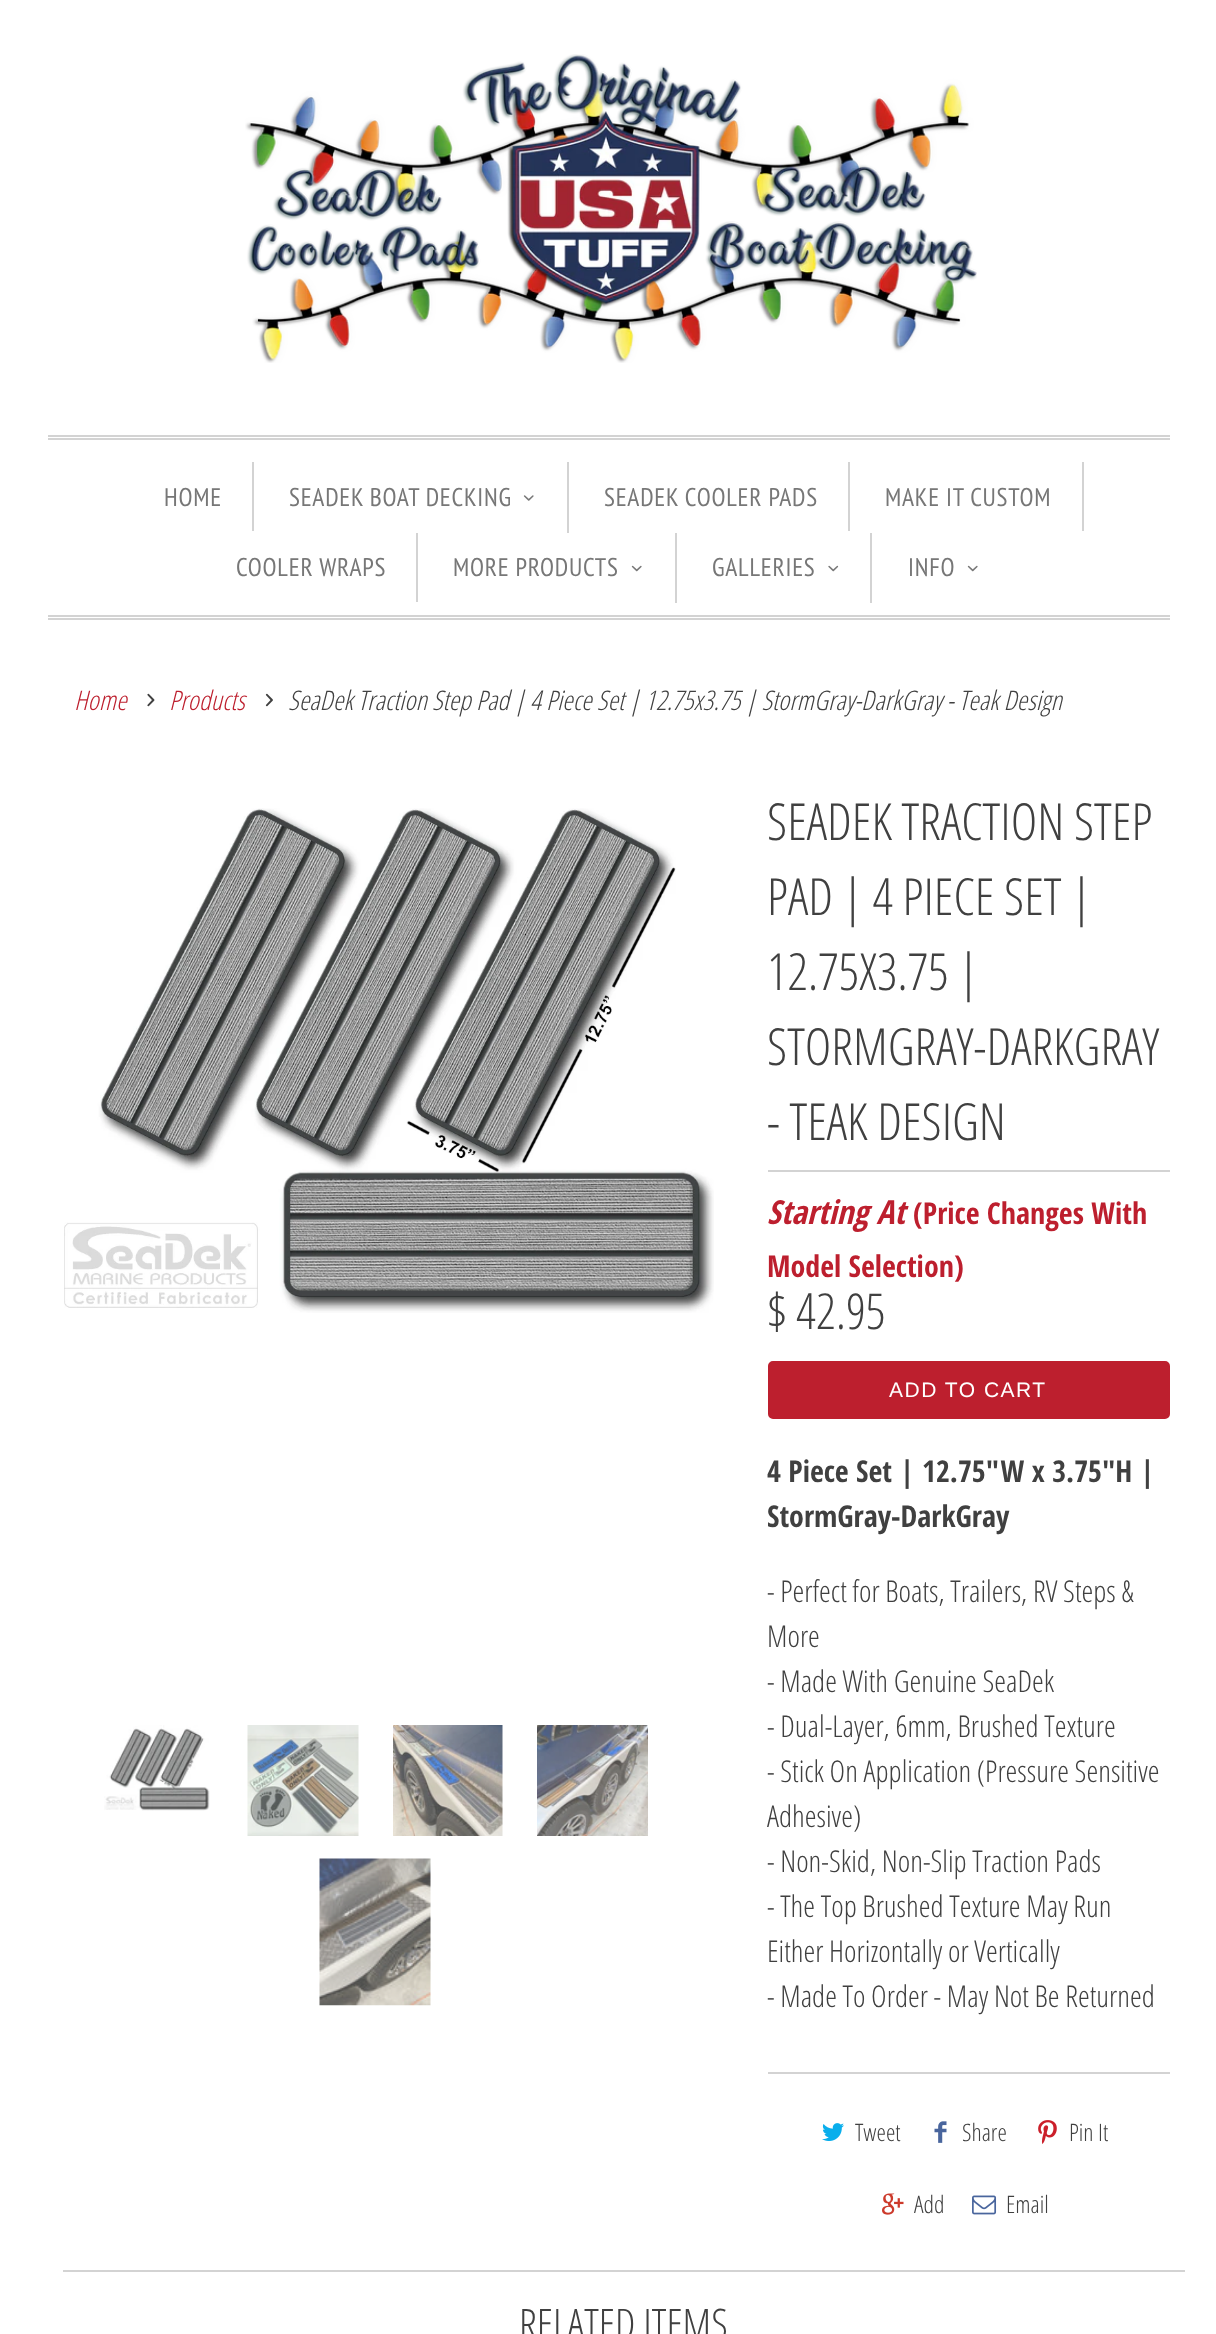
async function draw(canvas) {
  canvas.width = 1216
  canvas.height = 2334
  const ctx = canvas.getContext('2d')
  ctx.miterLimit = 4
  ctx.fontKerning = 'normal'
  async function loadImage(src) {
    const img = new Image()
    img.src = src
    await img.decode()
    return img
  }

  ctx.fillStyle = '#fff'
  ctx.fillRect(0, 0, 1216, 2334)
  ctx.drawImage(await loadImage('image0.png'), 245, 54, 732, 309)
  ctx.fillStyle = '#d3d3d3'
  ctx.fillRect(48, 435, 1122, 2)
  ctx.fillRect(48, 438, 1122, 2)
  ctx.fillRect(48, 615, 1122, 2)
  ctx.fillRect(48, 618, 1122, 2)
  ctx.fillRect(252, 462, 2, 69)
  ctx.letterSpacing = '0.75px'
  ctx.font = '25.5px PT Sans Narrow'
  ctx.fillStyle = '#777'
  ctx.fillText('HOME', 164, 506)
  ctx.fillStyle = '#d3d3d3'
  ctx.fillRect(567, 462, 2, 71)
  ctx.fillStyle = '#777'
  ctx.fillText('SEADEK BOAT DECKING', 289, 506)
  ctx.drawImage(await loadImage('image1.png'), 523, 495, 11, 6)
  ctx.fillStyle = '#d3d3d3'
  ctx.fillRect(848, 462, 2, 69)
  ctx.fillStyle = '#777'
  ctx.fillText('SEADEK COOLER PADS', 604, 506)
  ctx.fillStyle = '#d3d3d3'
  ctx.fillRect(1082, 462, 2, 69)
  ctx.fillStyle = '#777'
  ctx.fillText('MAKE IT CUSTOM', 885, 506)
  ctx.fillStyle = '#d3d3d3'
  ctx.fillRect(416, 533, 2, 69)
  ctx.fillStyle = '#777'
  ctx.fillText('COOLER WRAPS', 236, 576)
  ctx.fillStyle = '#d3d3d3'
  ctx.fillRect(675, 533, 2, 70)
  ctx.fillStyle = '#777'
  ctx.fillText('MORE PRODUCTS', 453, 576)
  ctx.drawImage(await loadImage('image2.png'), 631, 565, 11, 7)
  ctx.fillStyle = '#d3d3d3'
  ctx.fillRect(870, 533, 2, 70)
  ctx.fillStyle = '#777'
  ctx.fillText('GALLERIES', 712, 576)
  ctx.drawImage(await loadImage('image3.png'), 828, 565, 11, 7)
  ctx.fillText('INFO', 908, 576)
  ctx.drawImage(await loadImage('image2.png'), 967, 565, 11, 7)
  ctx.letterSpacing = '0px'
  ctx.font = 'italic 300 27px Open Sans Condensed'
  ctx.fillStyle = '#bd1f2e'
  ctx.fillText('Home', 74, 710)
  ctx.drawImage(await loadImage('image4.png'), 147, 693, 8, 14)
  ctx.fillText('Products', 169, 710)
  ctx.drawImage(await loadImage('image5.png'), 265, 693, 8, 14)
  ctx.fillStyle = '#404040'
  ctx.fillText('SeaDek Traction Step Pad | 4 Piece Set | 12.75x3.75 | StormGray-DarkGray - Teak Design', 288, 710)
  ctx.drawImage(await loadImage('image6.png'), 64, 808, 650, 505)
  ctx.drawImage(await loadImage('image7.png'), 104, 1725, 106, 86)
  ctx.drawImage(await loadImage('image8.png'), 247, 1725, 112, 111)
  ctx.drawImage(await loadImage('image9.png'), 393, 1725, 110, 111)
  ctx.drawImage(await loadImage('image10.png'), 537, 1725, 111, 111)
  ctx.drawImage(await loadImage('image11.png'), 319, 1858, 112, 148)
  ctx.fillStyle = '#d3d3d3'
  ctx.fillRect(768, 1170, 402, 2)
  ctx.font = '300 51px Open Sans Condensed'
  ctx.fillStyle = '#404040'
  ctx.fillText('SEADEK TRACTION STEP', 767, 840)
  ctx.fillText('PAD | 4 PIECE SET |', 767, 915)
  ctx.fillText('12.75X3.75 |', 767, 990)
  ctx.fillText('STORMGRAY-DARKGRAY', 767, 1065)
  ctx.fillText('- TEAK DESIGN', 767, 1140)
  ctx.font = 'italic bold 33px Open Sans Condensed'
  ctx.fillStyle = '#bd1f2e'
  ctx.fillText('Starting At', 767, 1224)
  ctx.font = 'bold 30px Open Sans Condensed'
  ctx.fillText('(Price Changes With', 913, 1224)
  ctx.fillText('Model Selection)', 767, 1277)
  ctx.font = '300 49.5px Open Sans Condensed'
  ctx.fillStyle = '#404040'
  ctx.fillText('$ 42.95', 767, 1329)
  ctx.fillStyle = '#bd1f2e'
  ctx.beginPath()
  ctx.roundRect(769, 1362, 400, 56, 4)
  ctx.fill()
  ctx.strokeStyle = '#bd1f2e'
  ctx.lineWidth = 2
  ctx.stroke()
  ctx.letterSpacing = '1.5px'
  ctx.font = '21px Liberation Sans'
  ctx.fillStyle = '#fff'
  ctx.fillText('ADD TO CART', 889, 1397)
  ctx.letterSpacing = '0px'
  ctx.font = 'bold 30px Open Sans Condensed'
  ctx.fillStyle = '#404040'
  ctx.fillText('4 Piece Set | 12.75"W x 3.75"H |', 767, 1482)
  ctx.fillText('StormGray-DarkGray', 767, 1527)
  ctx.font = '300 30px Open Sans Condensed'
  ctx.fillText('- Perfect for Boats, Trailers, RV Steps &', 767, 1602)
  ctx.fillText('More', 767, 1647)
  ctx.fillText('- Made With Genuine SeaDek', 767, 1692)
  ctx.fillText('- Dual-Layer, 6mm, Brushed Texture', 767, 1737)
  ctx.fillText('- Stick On Application (Pressure Sensitive', 767, 1782)
  ctx.fillText('Adhesive)', 767, 1827)
  ctx.fillText('- Non-Skid, Non-Slip Traction Pads', 767, 1872)
  ctx.fillText('- The Top Brushed Texture May Run', 767, 1917)
  ctx.fillText('Either Horizontally or Vertically', 767, 1962)
  ctx.fillText('- Made To Order - May Not Be Returned', 767, 2007)
  ctx.fillStyle = '#d3d3d3'
  ctx.fillRect(768, 2072, 402, 2)
  ctx.drawImage(await loadImage('image12.png'), 822, 2123, 22, 18)
  ctx.font = '300 24px Open Sans Condensed'
  ctx.fillStyle = '#404040'
  ctx.fillText('Tweet', 855, 2141)
  ctx.drawImage(await loadImage('image13.png'), 934, 2121, 13, 22)
  ctx.fillText('Share', 962, 2141)
  ctx.drawImage(await loadImage('image14.png'), 1038, 2120, 19, 24)
  ctx.fillText('Pin It', 1069, 2141)
  ctx.drawImage(await loadImage('image15.png'), 882, 2193, 22, 22)
  ctx.fillText('Add', 914, 2213)
  ctx.drawImage(await loadImage('image16.png'), 972, 2195, 25, 20)
  ctx.fillText('Email', 1006, 2213)
  ctx.fillStyle = '#d3d3d3'
  ctx.fillRect(63, 2270, 1122, 2)
  ctx.font = '300 42px Open Sans Condensed'
  ctx.fillStyle = '#404040'
  ctx.fillText('RELATED ITEMS', 519, 2339)
}

draw(document.querySelector('canvas'))
